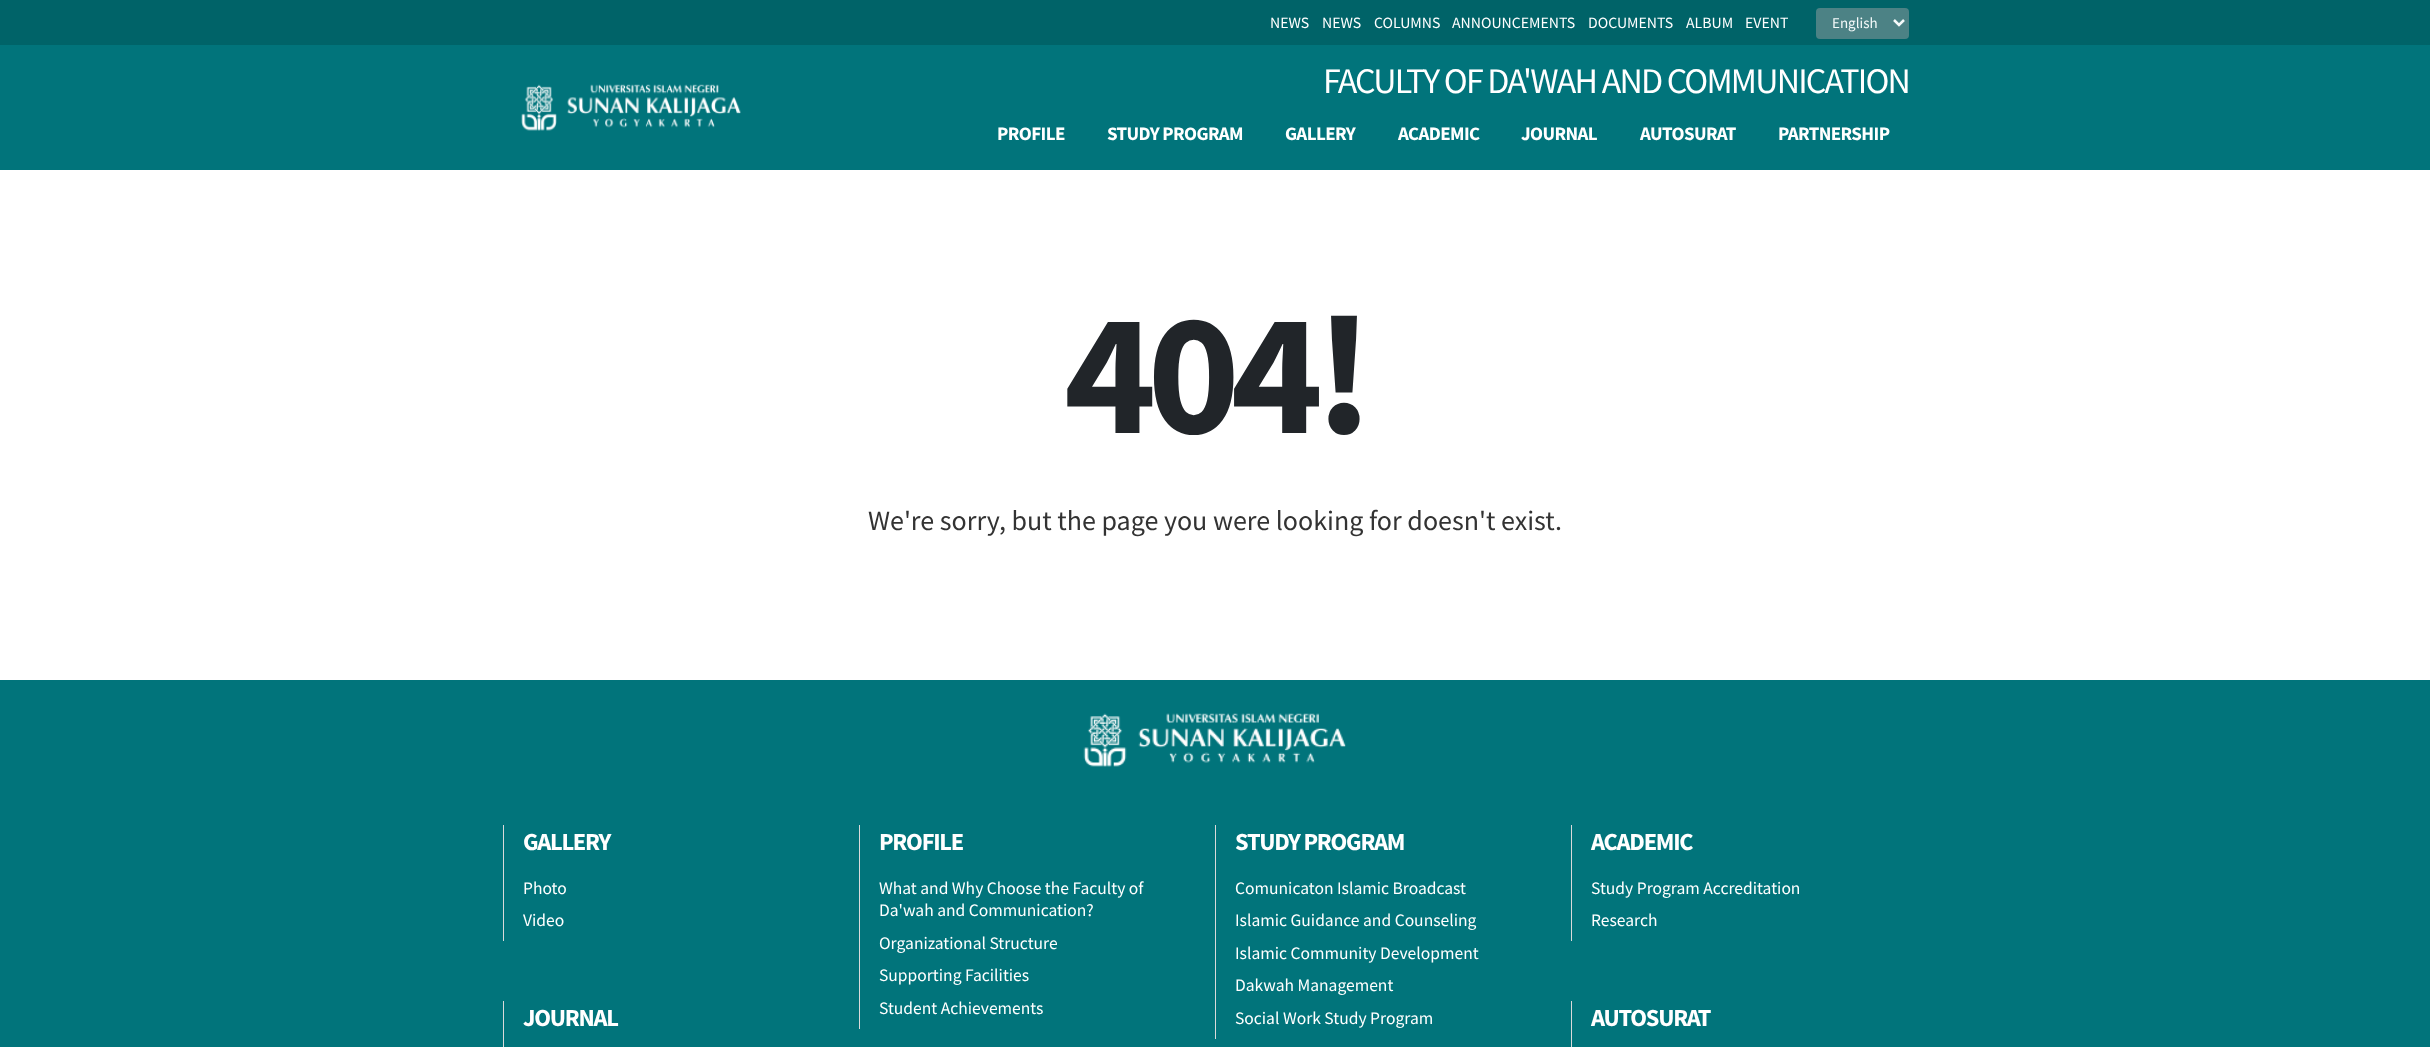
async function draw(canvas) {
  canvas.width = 2430
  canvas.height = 1047
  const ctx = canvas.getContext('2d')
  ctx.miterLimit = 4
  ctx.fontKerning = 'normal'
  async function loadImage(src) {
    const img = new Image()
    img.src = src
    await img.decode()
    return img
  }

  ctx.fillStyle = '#fff'
  ctx.fillRect(0, 0, 2430, 1047)
  ctx.fillStyle = '#006368'
  ctx.fillRect(0, 0, 2430, 45)
  ctx.font = '15.75px Source Sans Pro'
  ctx.fillStyle = '#fff'
  ctx.fillText('NEWS', 1270, 28)
  ctx.fillText('NEWS', 1322, 28)
  ctx.fillText('COLUMNS', 1374, 28)
  ctx.fillText('ANNOUNCEMENTS', 1452, 28)
  ctx.fillText('DOCUMENTS', 1588, 28)
  ctx.fillText('ALBUM', 1686, 28)
  ctx.fillText('EVENT', 1745, 28)
  ctx.fillStyle = '#4c8285'
  ctx.beginPath()
  ctx.roundRect(1816, 8, 93, 31, 4)
  ctx.fill()
  ctx.beginPath()
  ctx.moveTo(1894, 20)
  ctx.lineTo(1899, 25)
  ctx.lineTo(1904, 20)
  ctx.strokeStyle = '#f5fafa'
  ctx.lineWidth = 2.5
  ctx.stroke()
  ctx.font = '15px Source Sans Pro'
  ctx.fillStyle = '#f5fafa'
  ctx.fillText('English', 1832, 28)
  ctx.fillStyle = '#01747b'
  ctx.fillRect(0, 45, 2430, 125)
  ctx.drawImage(await loadImage('image0.png'), 521, 84, 220, 47)
  ctx.letterSpacing = '-1.8px'
  ctx.font = '36px Source Sans Pro'
  ctx.fillStyle = '#fff'
  ctx.fillText('FACULTY OF DA\'WAH AND COMMUNICATION', 1323, 93)
  ctx.letterSpacing = '-0.6px'
  ctx.font = 'bold 19px Source Sans Pro'
  ctx.fillText('PROFILE', 997, 140)
  ctx.fillText('STUDY PROGRAM', 1107, 140)
  ctx.fillText('GALLERY', 1285, 140)
  ctx.fillText('ACADEMIC', 1398, 140)
  ctx.fillText('JOURNAL', 1521, 140)
  ctx.fillText('AUTOSURAT', 1640, 140)
  ctx.fillText('PARTNERSHIP', 1778, 140)
  ctx.letterSpacing = '-9px'
  ctx.font = 'bold 175px Source Sans Pro'
  ctx.fillStyle = '#212529'
  ctx.fillText('404!', 1064, 433)
  ctx.letterSpacing = '0px'
  ctx.font = '28px Source Sans Pro'
  ctx.fillStyle = '#333'
  ctx.fillText('We\'re sorry, but the page you were looking for doesn\'t exist.', 868, 530)
  ctx.fillStyle = '#01747b'
  ctx.fillRect(0, 680, 2430, 367)
  ctx.drawImage(await loadImage('image1.png'), 1083, 713, 263, 54)
  ctx.fillStyle = '#dadada'
  ctx.fillRect(503, 825, 1, 116)
  ctx.letterSpacing = '-1.25px'
  ctx.font = 'bold 24.5px Source Sans Pro'
  ctx.fillStyle = '#fff'
  ctx.fillText('GALLERY', 523, 850)
  ctx.letterSpacing = '0px'
  ctx.font = '17.5px Source Sans Pro'
  ctx.fillText('Photo', 523, 894)
  ctx.fillText('Video', 523, 926)
  ctx.fillStyle = '#dadada'
  ctx.fillRect(859, 825, 1, 204)
  ctx.letterSpacing = '-1.25px'
  ctx.font = 'bold 24.5px Source Sans Pro'
  ctx.fillStyle = '#fff'
  ctx.fillText('PROFILE', 879, 850)
  ctx.letterSpacing = '0px'
  ctx.font = '17.5px Source Sans Pro'
  ctx.fillText('What and Why Choose the Faculty of', 879, 894)
  ctx.fillText('Da\'wah and Communication?', 879, 916)
  ctx.fillText('Organizational Structure', 879, 949)
  ctx.fillText('Supporting Facilities', 879, 981)
  ctx.fillText('Student Achievements', 879, 1014)
  ctx.fillStyle = '#dadada'
  ctx.fillRect(1215, 825, 1, 214)
  ctx.letterSpacing = '-1.25px'
  ctx.font = 'bold 24.5px Source Sans Pro'
  ctx.fillStyle = '#fff'
  ctx.fillText('STUDY PROGRAM', 1235, 850)
  ctx.letterSpacing = '0px'
  ctx.font = '17.5px Source Sans Pro'
  ctx.fillText('Comunicaton Islamic Broadcast', 1235, 894)
  ctx.fillText('Islamic Guidance and Counseling', 1235, 926)
  ctx.fillText('Islamic Community Development', 1235, 959)
  ctx.fillText('Dakwah Management', 1235, 991)
  ctx.fillText('Social Work Study Program', 1235, 1024)
  ctx.fillStyle = '#dadada'
  ctx.fillRect(1571, 825, 1, 116)
  ctx.letterSpacing = '-1.25px'
  ctx.font = 'bold 24.5px Source Sans Pro'
  ctx.fillStyle = '#fff'
  ctx.fillText('ACADEMIC', 1591, 850)
  ctx.letterSpacing = '0px'
  ctx.font = '17.5px Source Sans Pro'
  ctx.fillText('Study Program Accreditation', 1591, 894)
  ctx.fillText('Research', 1591, 926)
  ctx.fillStyle = '#dadada'
  ctx.fillRect(503, 1001, 1, 46)
  ctx.letterSpacing = '-1.25px'
  ctx.font = 'bold 24.5px Source Sans Pro'
  ctx.fillStyle = '#fff'
  ctx.fillText('JOURNAL', 523, 1026)
  ctx.fillStyle = '#dadada'
  ctx.fillRect(1571, 1001, 1, 46)
  ctx.fillStyle = '#fff'
  ctx.fillText('AUTOSURAT', 1591, 1026)
}

draw(document.querySelector('canvas'))
